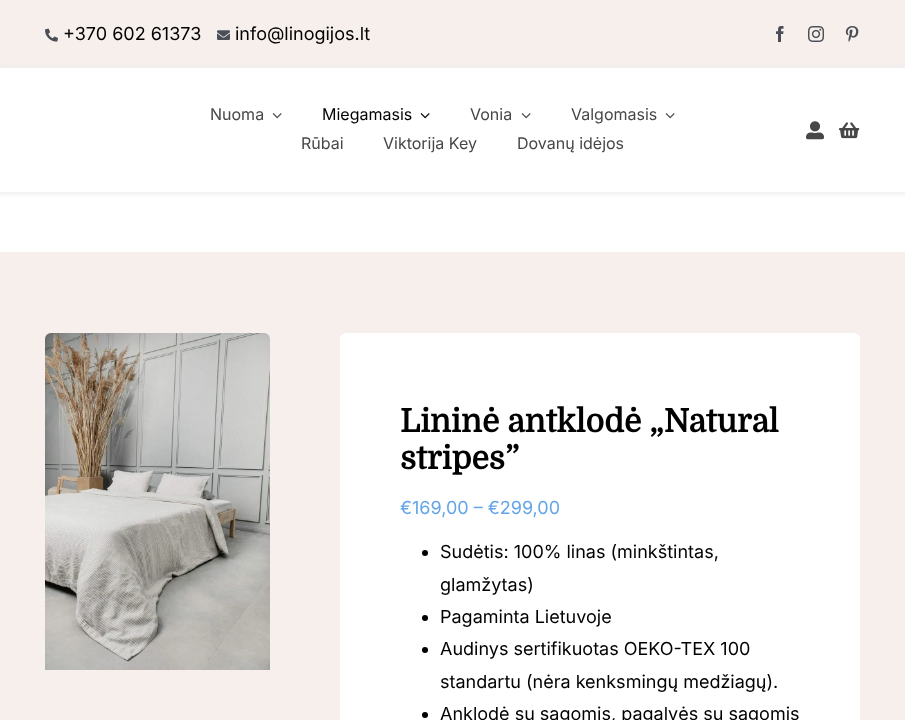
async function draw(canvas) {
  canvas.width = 905
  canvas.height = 720
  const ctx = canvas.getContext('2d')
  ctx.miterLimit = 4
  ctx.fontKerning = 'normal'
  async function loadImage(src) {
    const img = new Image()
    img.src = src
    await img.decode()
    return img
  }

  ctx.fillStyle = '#fff'
  ctx.fillRect(0, 0, 905, 720)
  ctx.fillStyle = '#f7efec'
  ctx.fillRect(0, 0, 905, 68)
  ctx.drawImage(await loadImage('image0.png'), 45, 28, 13, 14)
  ctx.font = '18px Inter'
  ctx.fillStyle = '#000'
  ctx.fillText('+370 602 61373', 63, 40)
  ctx.drawImage(await loadImage('image1.png'), 217, 30, 13, 10)
  ctx.fillText('info@linogijos.lt', 235, 40)
  ctx.drawImage(await loadImage('image2.png'), 776, 26, 8, 16)
  ctx.drawImage(await loadImage('image3.png'), 808, 26, 16, 16)
  ctx.drawImage(await loadImage('image4.png'), 845, 26, 14, 16)
  ctx.save()
  ctx.beginPath()
  ctx.moveTo(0, 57)
  ctx.lineTo(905, 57)
  ctx.lineTo(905, 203)
  ctx.lineTo(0, 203)
  ctx.closePath()
  ctx.moveTo(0, 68)
  ctx.lineTo(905, 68)
  ctx.lineTo(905, 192)
  ctx.lineTo(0, 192)
  ctx.closePath()
  ctx.clip('evenodd')
  ctx.fillStyle = '#ededed'
  ctx.filter = 'blur(2.5px)'
  ctx.beginPath()
  ctx.rect(-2, 66, 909, 128)
  ctx.fill()
  ctx.filter = 'none'
  ctx.restore()
  ctx.font = '16px Inter'
  ctx.fillStyle = '#474747'
  ctx.fillText('Nuoma', 210, 120)
  ctx.drawImage(await loadImage('image5.png'), 272, 113, 10, 6)
  ctx.fillStyle = '#000'
  ctx.fillText('Miegamasis', 322, 120)
  ctx.drawImage(await loadImage('image6.png'), 420, 113, 10, 6)
  ctx.fillStyle = '#474747'
  ctx.fillText('Vonia', 470, 120)
  ctx.drawImage(await loadImage('image5.png'), 521, 113, 10, 6)
  ctx.fillText('Valgomasis', 571, 120)
  ctx.drawImage(await loadImage('image5.png'), 665, 113, 10, 6)
  ctx.fillText('Rūbai', 301, 149)
  ctx.fillText('Viktorija Key', 383, 149)
  ctx.fillText('Dovanų idėjos', 517, 149)
  ctx.drawImage(await loadImage('image7.png'), 806, 121, 18, 19)
  ctx.drawImage(await loadImage('image8.png'), 839, 122, 21, 17)
  ctx.fillStyle = '#f7efec'
  ctx.fillRect(0, 252, 905, 468)
  ctx.drawImage(await loadImage('image9.png'), 45, 333, 225, 337)
  ctx.fillStyle = '#fff'
  ctx.beginPath()
  ctx.roundRect(340, 333, 520, 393, 6)
  ctx.fill()
  ctx.font = 'bold 32px Domine'
  ctx.fillStyle = '#000'
  ctx.fillText('Lininė antklodė „Natural', 400, 432)
  ctx.fillText('stripes”', 400, 469)
  ctx.font = '18px Inter'
  ctx.fillStyle = '#63a5e8'
  ctx.fillText('€169,00 – €299,00', 400, 514)
  ctx.fillStyle = '#000'
  ctx.beginPath()
  ctx.arc(425, 553, 3, 0, 2 * Math.PI)
  ctx.fill()
  ctx.fillText('Sudėtis: 100% linas (minkštintas,', 440, 558)
  ctx.fillText('glamžytas)', 440, 591)
  ctx.beginPath()
  ctx.arc(425, 618, 3, 0, 2 * Math.PI)
  ctx.fill()
  ctx.fillText('Pagaminta Lietuvoje', 440, 623)
  ctx.beginPath()
  ctx.arc(425, 650, 3, 0, 2 * Math.PI)
  ctx.fill()
  ctx.fillText('Audinys sertifikuotas OEKO-TEX 100', 440, 655)
  ctx.fillText('standartu (nėra kenksmingų medžiagų).', 440, 688)
  ctx.beginPath()
  ctx.arc(425, 715, 3, 0, 2 * Math.PI)
  ctx.fill()
  ctx.fillText('Anklodė su sagomis, pagalvės su sagomis', 440, 720)
}

draw(document.querySelector('canvas'))
